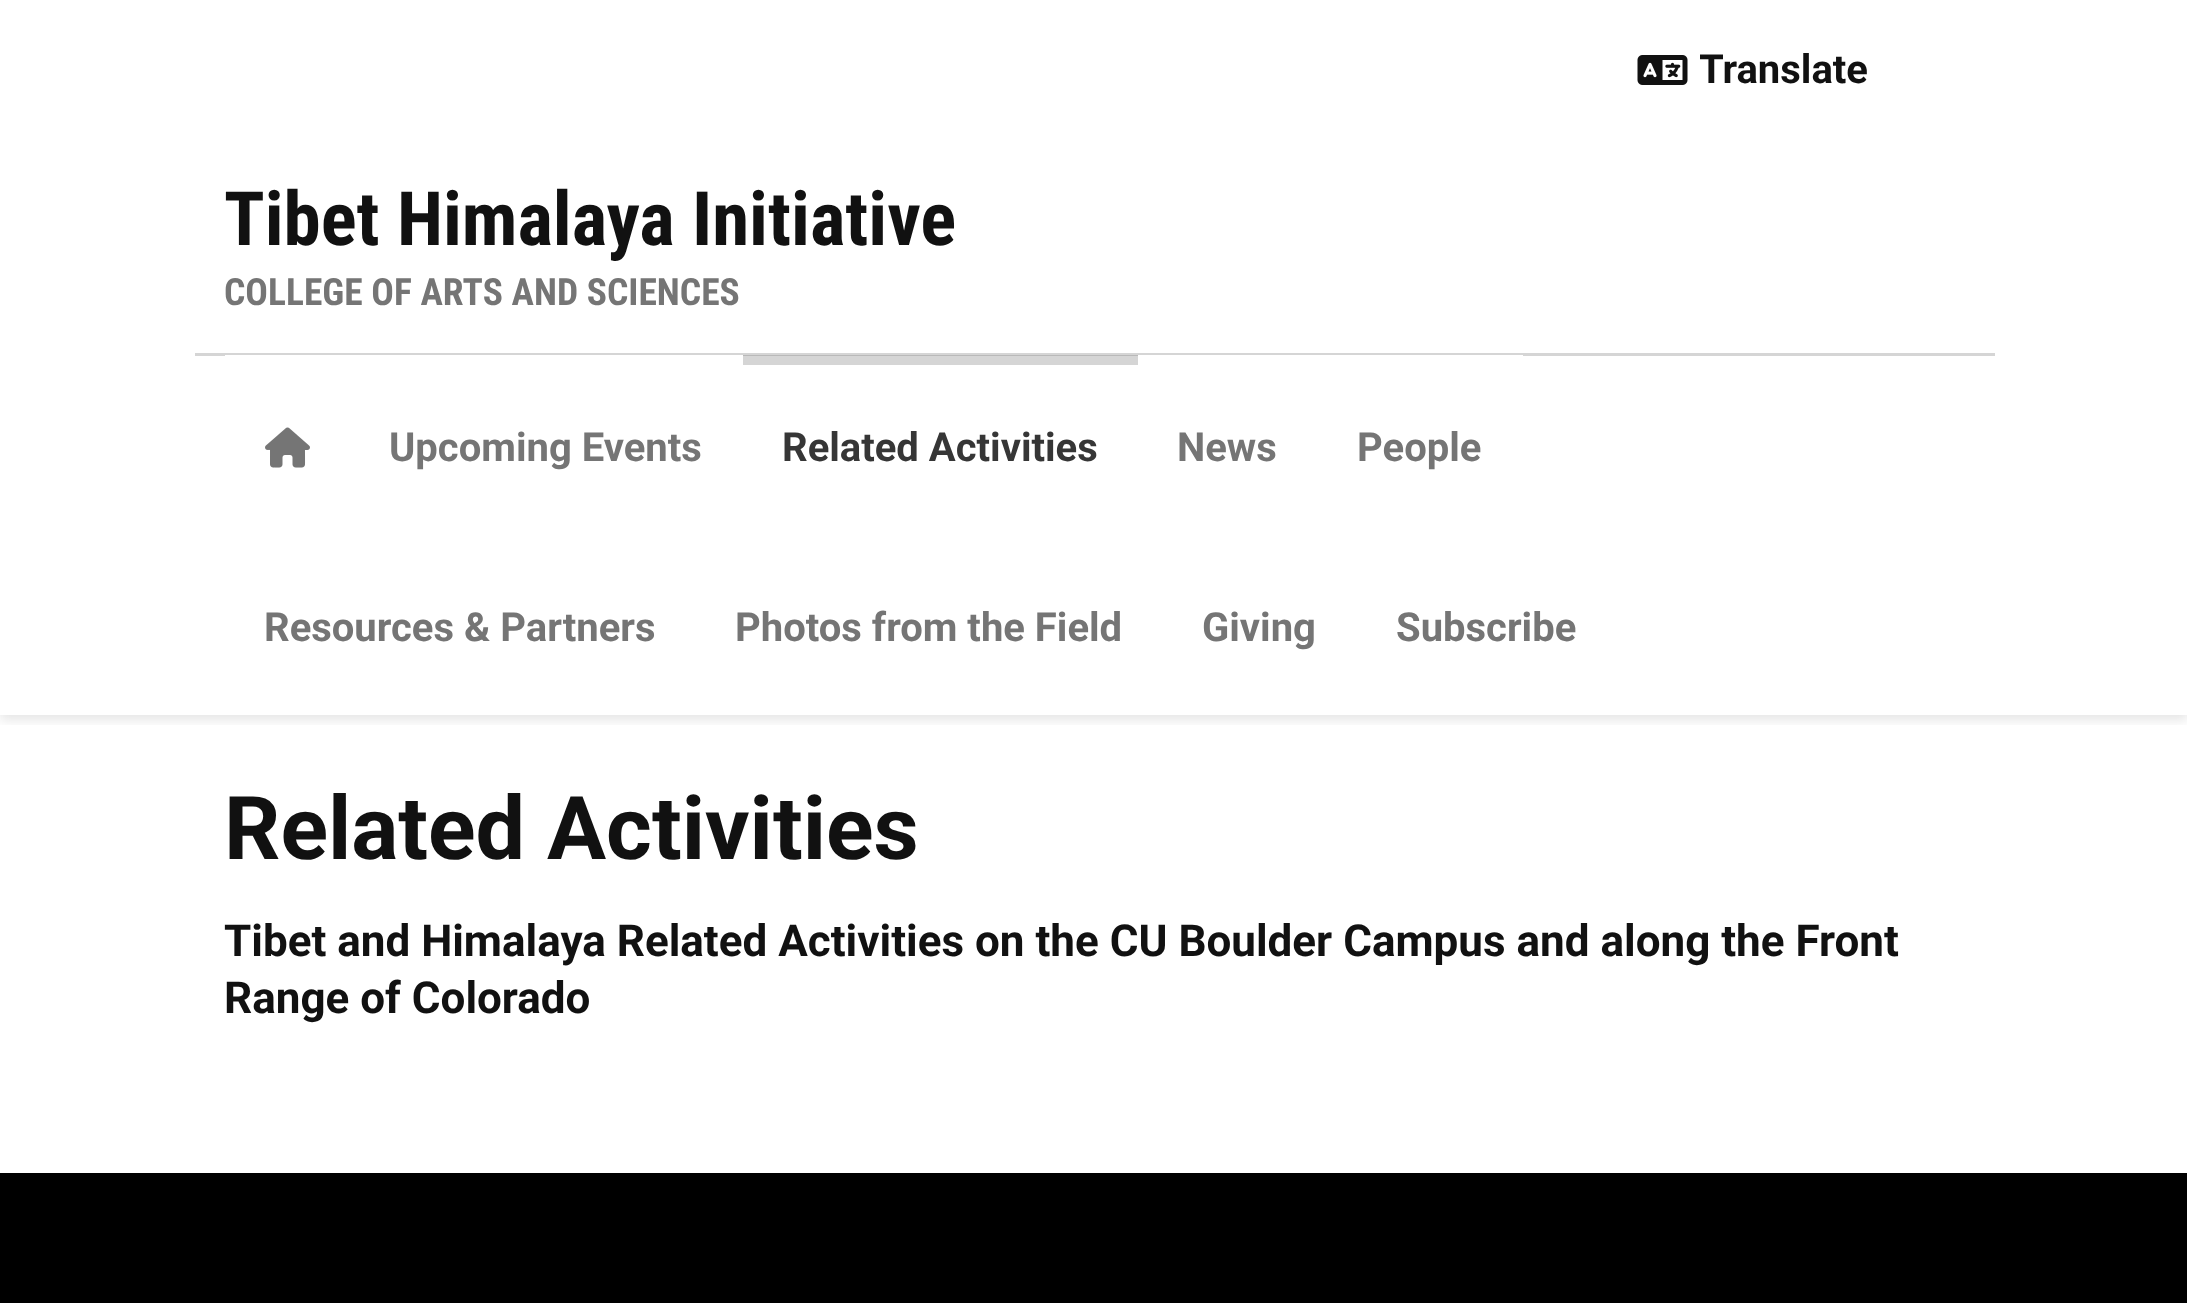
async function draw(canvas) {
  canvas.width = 2187
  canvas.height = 1303
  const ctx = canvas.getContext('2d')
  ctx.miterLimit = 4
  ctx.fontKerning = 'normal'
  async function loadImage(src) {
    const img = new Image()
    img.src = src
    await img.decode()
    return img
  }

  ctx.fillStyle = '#fff'
  ctx.fillRect(0, 0, 2187, 1303)
  ctx.fillStyle = '#d5d5d5'
  ctx.fillRect(743, 356, 395, 9)
  ctx.drawImage(await loadImage('image0.png'), 1637, 55, 51, 30)
  ctx.save()
  ctx.beginPath()
  ctx.rect(1700, 40, 175, 60)
  ctx.clip()
  ctx.font = 'bold 40px Roboto'
  ctx.fillStyle = '#111'
  ctx.fillText('Translate', 1699, 83)
  ctx.restore()
  ctx.save()
  ctx.beginPath()
  ctx.rect(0, 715, 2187, 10)
  ctx.clip()
  ctx.fillStyle = '#0000001a'
  ctx.filter = 'blur(6px)'
  ctx.beginPath()
  ctx.rect(0, 358, 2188, 362)
  ctx.fill()
  ctx.filter = 'none'
  ctx.restore()
  ctx.fillStyle = '#fff'
  ctx.fillRect(4, 350, 2180, 2)
  ctx.font = 'bold 75px Roboto Condensed'
  ctx.fillStyle = '#111'
  ctx.fillText('Tibet Himalaya Initiative', 224, 245)
  ctx.font = 'bold 37.5px Roboto Condensed'
  ctx.fillStyle = '#757575'
  ctx.fillText('COLLEGE OF ARTS AND SCIENCES', 224, 305)
  ctx.fillStyle = '#d5d5d5'
  ctx.fillRect(195, 353, 1800, 3)
  ctx.fillStyle = '#b9b9b9'
  ctx.fillRect(743, 355, 395, 1)
  ctx.fillStyle = '#fff'
  ctx.fillRect(225, 355, 518, 1)
  ctx.drawImage(await loadImage('image1.png'), 265, 427, 45, 41)
  ctx.font = 'bold 40px Roboto'
  ctx.fillStyle = '#757575'
  ctx.fillText('Upcoming Events', 389, 461)
  ctx.fillStyle = '#363636'
  ctx.fillText('Related Activities', 782, 461)
  ctx.fillStyle = '#fff'
  ctx.fillRect(1138, 355, 385, 1)
  ctx.fillStyle = '#757575'
  ctx.fillText('News', 1177, 461)
  ctx.fillText('People', 1357, 461)
  ctx.fillText('Resources & Partners', 264, 641)
  ctx.fillText('Photos from the Field', 735, 641)
  ctx.fillText('Giving', 1202, 641)
  ctx.fillText('Subscribe', 1396, 641)
  ctx.font = 'bold 88px Roboto'
  ctx.fillStyle = '#111'
  ctx.fillText('Related Activities', 224, 859)
  ctx.font = 'bold 44px Roboto'
  ctx.fillText('Tibet and Himalaya Related Activities on the CU Boulder Campus and along the Front', 224, 956)
  ctx.fillText('Range of Colorado', 224, 1013)
  ctx.fillStyle = '#000'
  ctx.fillRect(0, 1173, 2187, 130)
}

draw(document.querySelector('canvas'))
